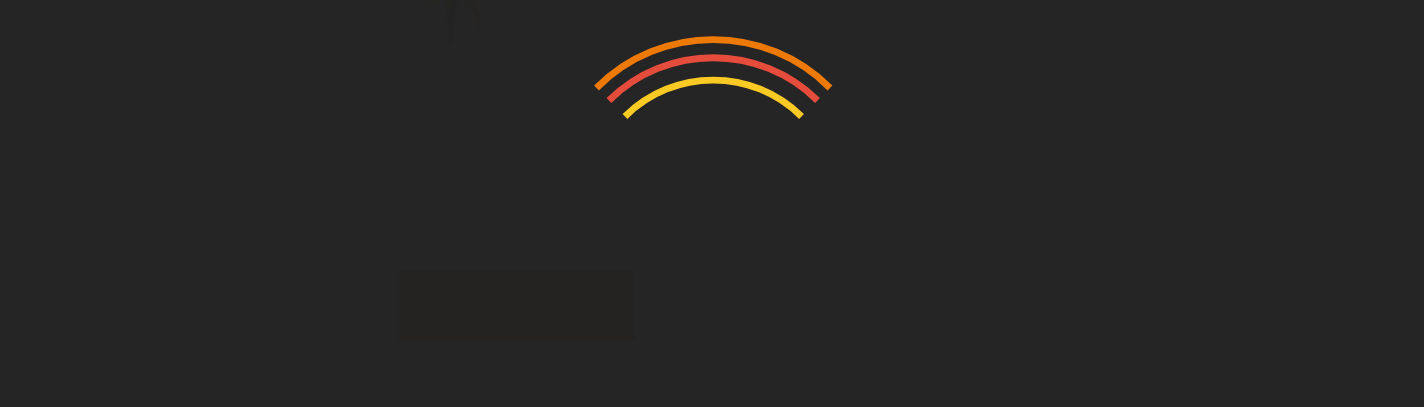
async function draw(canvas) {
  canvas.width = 1424
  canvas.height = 407
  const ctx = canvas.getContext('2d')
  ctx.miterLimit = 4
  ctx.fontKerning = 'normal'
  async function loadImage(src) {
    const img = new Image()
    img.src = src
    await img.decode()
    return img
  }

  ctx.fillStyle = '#fff'
  ctx.fillRect(0, 0, 1424, 407)
  ctx.drawImage(await loadImage('image0.png'), 376, 0, 111, 47)
  ctx.fillStyle = '#acabab4d'
  ctx.filter = 'blur(11px)'
  ctx.beginPath()
  ctx.rect(0, 56, 1424, 349)
  ctx.fill()
  ctx.filter = 'none'
  ctx.fillStyle = '#f5f4e0'
  ctx.fillRect(0, 59, 1424, 348)
  ctx.fillStyle = '#dedfe0'
  ctx.fillRect(56, 270, 320, 70)
  ctx.fillStyle = '#ef7b07'
  ctx.fillRect(398, 270, 237, 70)
  ctx.fillStyle = '#222222fc'
  ctx.fillRect(0, 0, 727, 407)
  ctx.fillRect(727, 0, 697, 407)
  ctx.beginPath()
  ctx.moveTo(596.5, 88)
  ctx.bezierCurveTo(660.5, 23.5, 766, 23.5, 830, 88)
  ctx.strokeStyle = '#ed7a07'
  ctx.lineWidth = 6.8
  ctx.stroke()
  ctx.beginPath()
  ctx.moveTo(609, 100.5)
  ctx.bezierCurveTo(666.5, 43.5, 760, 43.5, 817.5, 100.5)
  ctx.strokeStyle = '#e54c3c'
  ctx.stroke()
  ctx.beginPath()
  ctx.moveTo(625, 116.5)
  ctx.bezierCurveTo(673.5, 68, 753, 68, 801.5, 116.5)
  ctx.strokeStyle = '#f9ca24'
  ctx.stroke()
}

draw(document.querySelector('canvas'))
